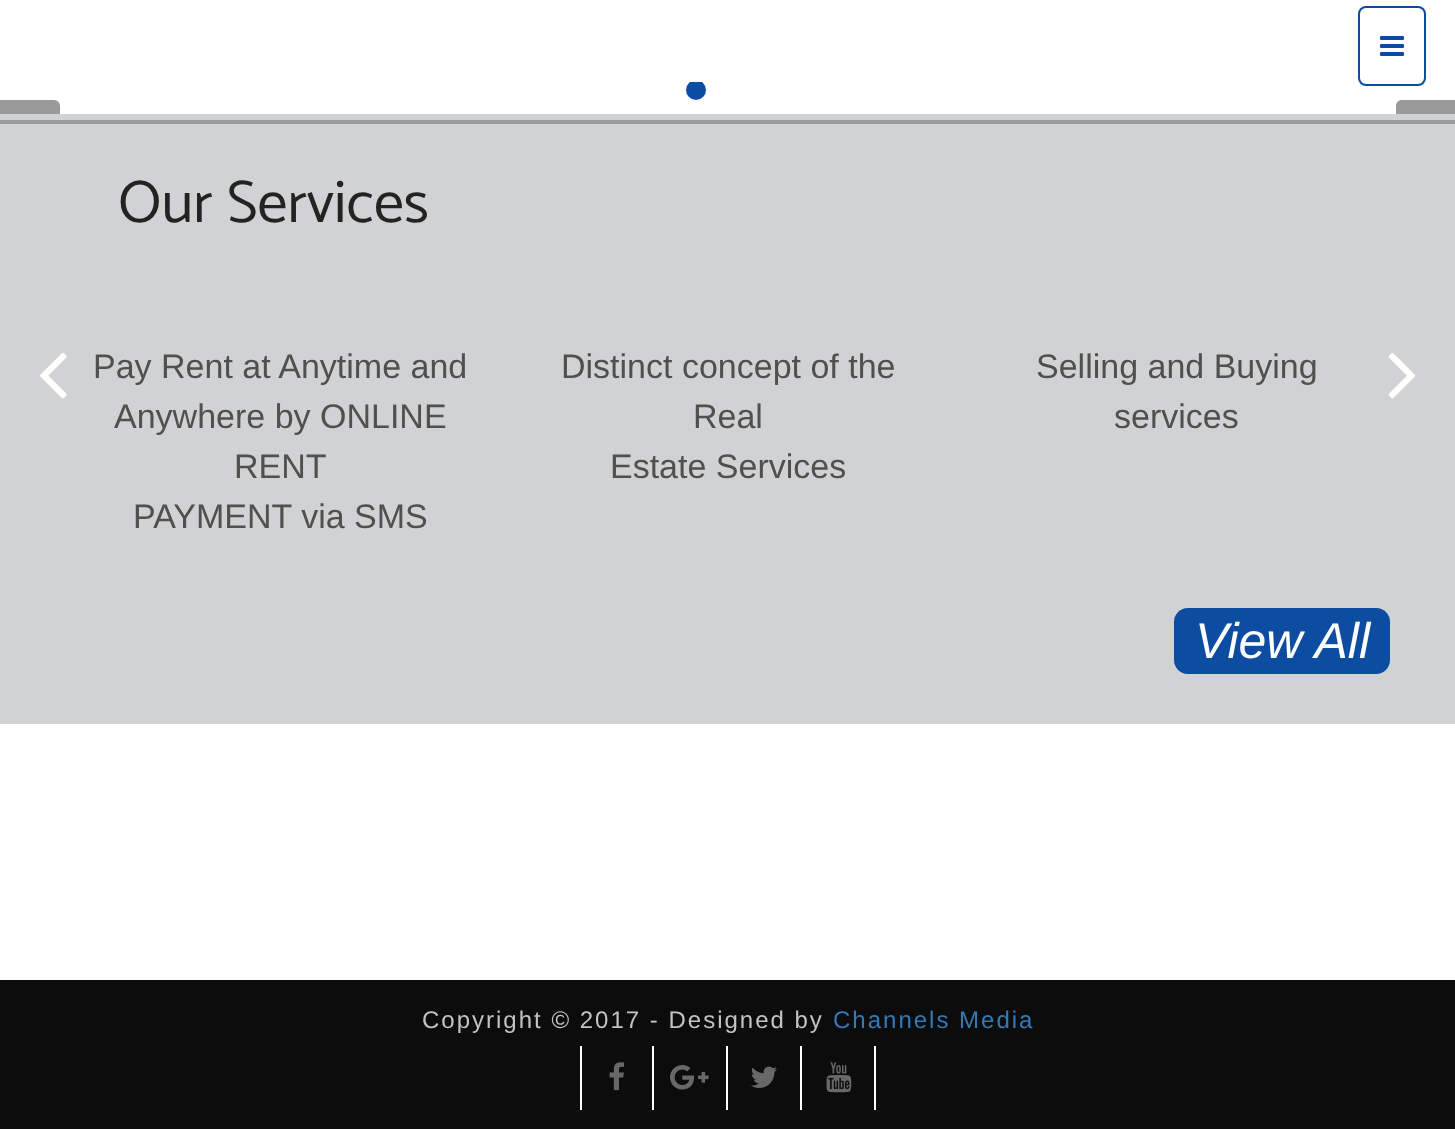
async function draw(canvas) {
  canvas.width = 1455
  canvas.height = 1129
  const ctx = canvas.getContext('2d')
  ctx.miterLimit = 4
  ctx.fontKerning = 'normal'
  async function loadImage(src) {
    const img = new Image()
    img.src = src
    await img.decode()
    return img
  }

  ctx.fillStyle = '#fff'
  ctx.fillRect(0, 0, 1455, 1129)
  ctx.beginPath()
  ctx.roundRect(1359, 7, 66, 78, 7)
  ctx.strokeStyle = '#0c4da2'
  ctx.lineWidth = 2
  ctx.stroke()
  ctx.drawImage(await loadImage('image0.png'), 1380, 36, 24, 20)
  ctx.save()
  ctx.beginPath()
  ctx.rect(0, 82, 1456, 32)
  ctx.clip()
  ctx.fillStyle = '#0c4ca3'
  ctx.beginPath()
  ctx.arc(696, 90, 11, 0, 2 * Math.PI)
  ctx.fill()
  ctx.strokeStyle = '#fff'
  ctx.stroke()
  ctx.restore()
  ctx.fillStyle = '#999'
  ctx.beginPath()
  ctx.roundRect(0, 100, 60, 14, [0, 6, 0, 0])
  ctx.fill()
  ctx.beginPath()
  ctx.moveTo(1402, 100)
  ctx.lineTo(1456, 100)
  ctx.lineTo(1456, 114)
  ctx.lineTo(1396, 114)
  ctx.lineTo(1396, 106)
  ctx.bezierCurveTo(1396, 102.5, 1398.5, 100, 1402, 100)
  ctx.closePath()
  ctx.fill()
  ctx.fillStyle = '#d1d2d4'
  ctx.fillRect(0, 114, 1455, 610)
  ctx.fillStyle = '#9a9d9f'
  ctx.fillRect(0, 120, 1455, 4)
  ctx.font = '100 60px Catamaran'
  ctx.fillStyle = '#232323'
  ctx.fillText('Our Services', 118, 222)
  ctx.drawImage(await loadImage('image1.png'), 40, 352, 27, 47)
  ctx.drawImage(await loadImage('image2.png'), 1388, 352, 28, 47)
  ctx.font = '34px Liberation Sans'
  ctx.fillStyle = '#505050'
  ctx.fillText('Pay Rent at Anytime and', 93, 378)
  ctx.fillText('Anywhere by ONLINE', 114, 428)
  ctx.fillText('RENT', 234, 478)
  ctx.fillText('PAYMENT via SMS', 133, 528)
  ctx.fillText('Distinct concept of the', 561, 378)
  ctx.fillText('Real', 693, 428)
  ctx.fillText('Estate Services', 610, 478)
  ctx.fillText('Selling and Buying', 1036, 378)
  ctx.fillText('services', 1114, 428)
  ctx.fillStyle = '#0c4da2'
  ctx.beginPath()
  ctx.roundRect(1174, 608, 216, 66, 14)
  ctx.fill()
  ctx.font = 'italic 50px Liberation Sans'
  ctx.fillStyle = '#fff'
  ctx.fillText('View All', 1195, 658)
  ctx.fillStyle = '#0c0c0c'
  ctx.fillRect(0, 980, 1455, 149)
  ctx.letterSpacing = '2px'
  ctx.font = '24px Liberation Sans'
  ctx.fillStyle = '#c3c3c3'
  ctx.fillText('Copyright © 2017 - Designed by', 422, 1028)
  ctx.fillStyle = '#337ab7'
  ctx.fillText('Channels Media', 833, 1028)
  ctx.fillStyle = '#fff'
  ctx.fillRect(652, 1046, 2, 64)
  ctx.fillRect(580, 1046, 2, 64)
  ctx.drawImage(await loadImage('image3.png'), 609, 1062, 16, 29)
  ctx.fillRect(726, 1046, 2, 64)
  ctx.drawImage(await loadImage('image4.png'), 670, 1065, 39, 25)
  ctx.fillRect(800, 1046, 2, 64)
  ctx.drawImage(await loadImage('image5.png'), 751, 1066, 26, 22)
  ctx.fillRect(874, 1046, 2, 64)
  ctx.drawImage(await loadImage('image6.png'), 826, 1062, 26, 31)
}

draw(document.querySelector('canvas'))
